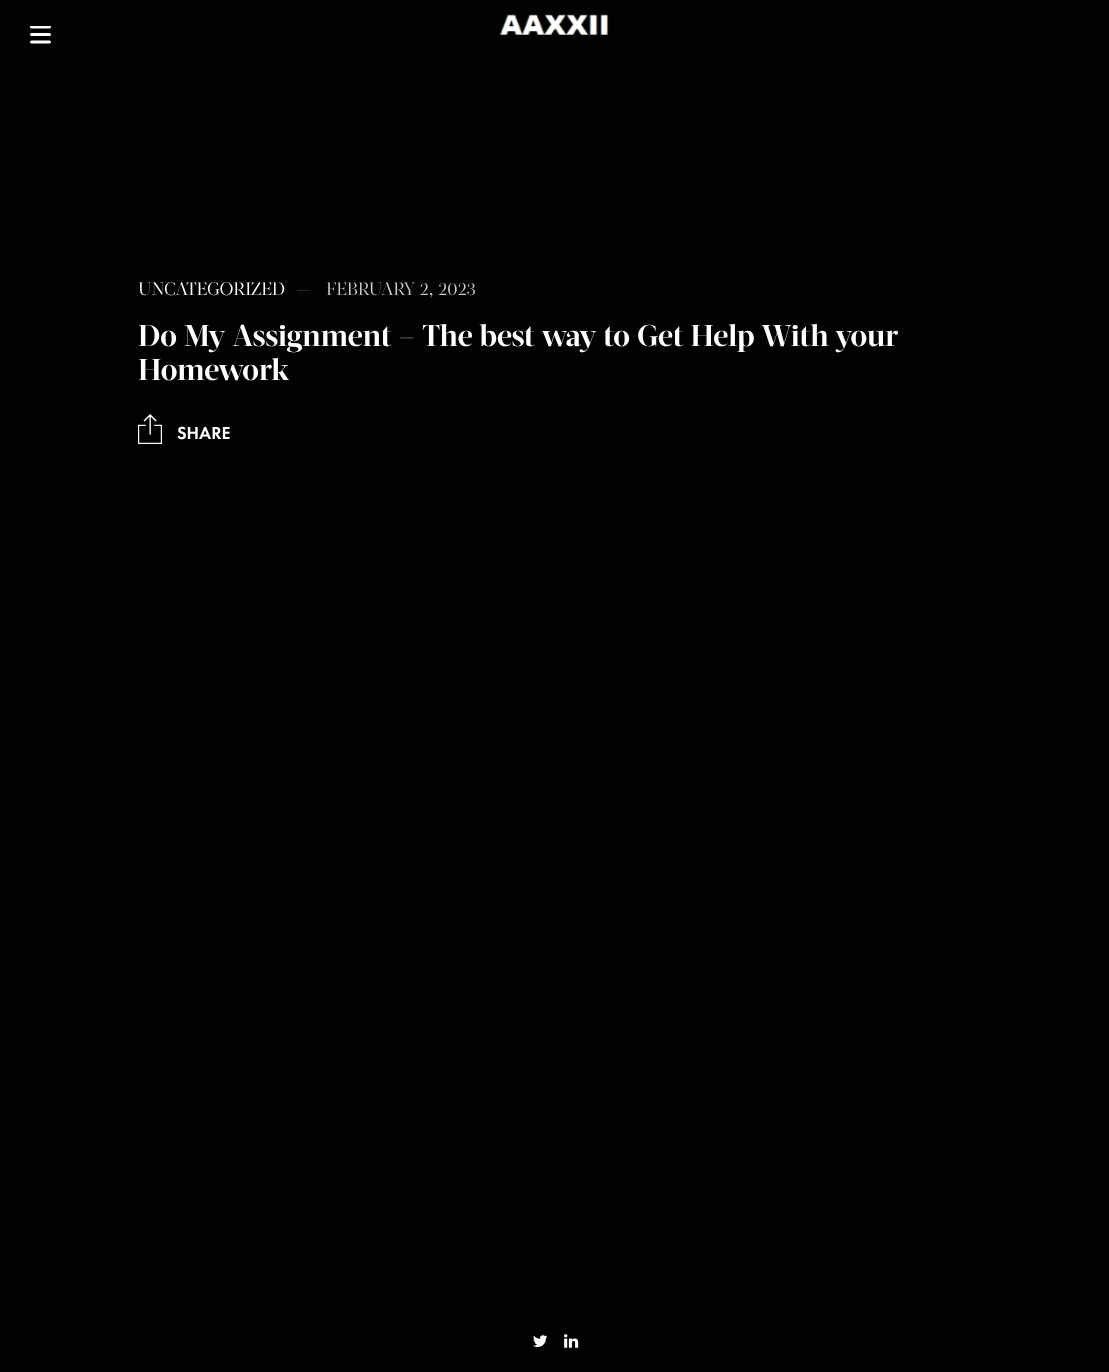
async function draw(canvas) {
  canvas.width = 1109
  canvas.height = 1372
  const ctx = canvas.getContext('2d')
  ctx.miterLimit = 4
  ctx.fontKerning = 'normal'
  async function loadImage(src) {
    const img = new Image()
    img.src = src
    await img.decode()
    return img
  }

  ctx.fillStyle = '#020202'
  ctx.fillRect(0, 0, 1109, 1372)
  ctx.save()
  ctx.beginPath()
  ctx.rect(30, 26, 30, 18)
  ctx.clip()
  ctx.beginPath()
  ctx.moveTo(31.5, 27)
  ctx.lineTo(49.5, 27)
  ctx.strokeStyle = '#fff'
  ctx.lineWidth = 3
  ctx.lineCap = 'round'
  ctx.lineJoin = 'round'
  ctx.stroke()
  ctx.restore()
  ctx.beginPath()
  ctx.moveTo(31.5, 34.5)
  ctx.lineTo(49.5, 34.5)
  ctx.moveTo(31.5, 42)
  ctx.lineTo(49.5, 42)
  ctx.strokeStyle = '#fff'
  ctx.lineWidth = 3
  ctx.lineCap = 'round'
  ctx.lineJoin = 'round'
  ctx.stroke()
  ctx.drawImage(await loadImage('image0.png'), 499, 14, 110, 21)
  ctx.font = '18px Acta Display'
  ctx.fillStyle = '#fff'
  ctx.fillText('UNCATEGORIZED', 138, 295)
  ctx.fillStyle = '#ccc'
  ctx.fillText('—', 296, 295)
  ctx.fillText('FEBRUARY 2, 2023', 326, 295)
  ctx.font = 'bold 30px Acta Display'
  ctx.fillStyle = '#fff'
  ctx.fillText('Do My Assignment – The best way to Get Help With your', 138, 346)
  ctx.fillText('Homework', 138, 380)
  ctx.drawImage(await loadImage('image1.png'), 138, 414, 24, 30)
  ctx.font = '500 18px Futura PT'
  ctx.fillText('SHARE', 177, 439)
  ctx.drawImage(await loadImage('image2.png'), 533, 1335, 15, 12)
  ctx.drawImage(await loadImage('image3.png'), 564, 1334, 15, 14)
}

draw(document.querySelector('canvas'))
